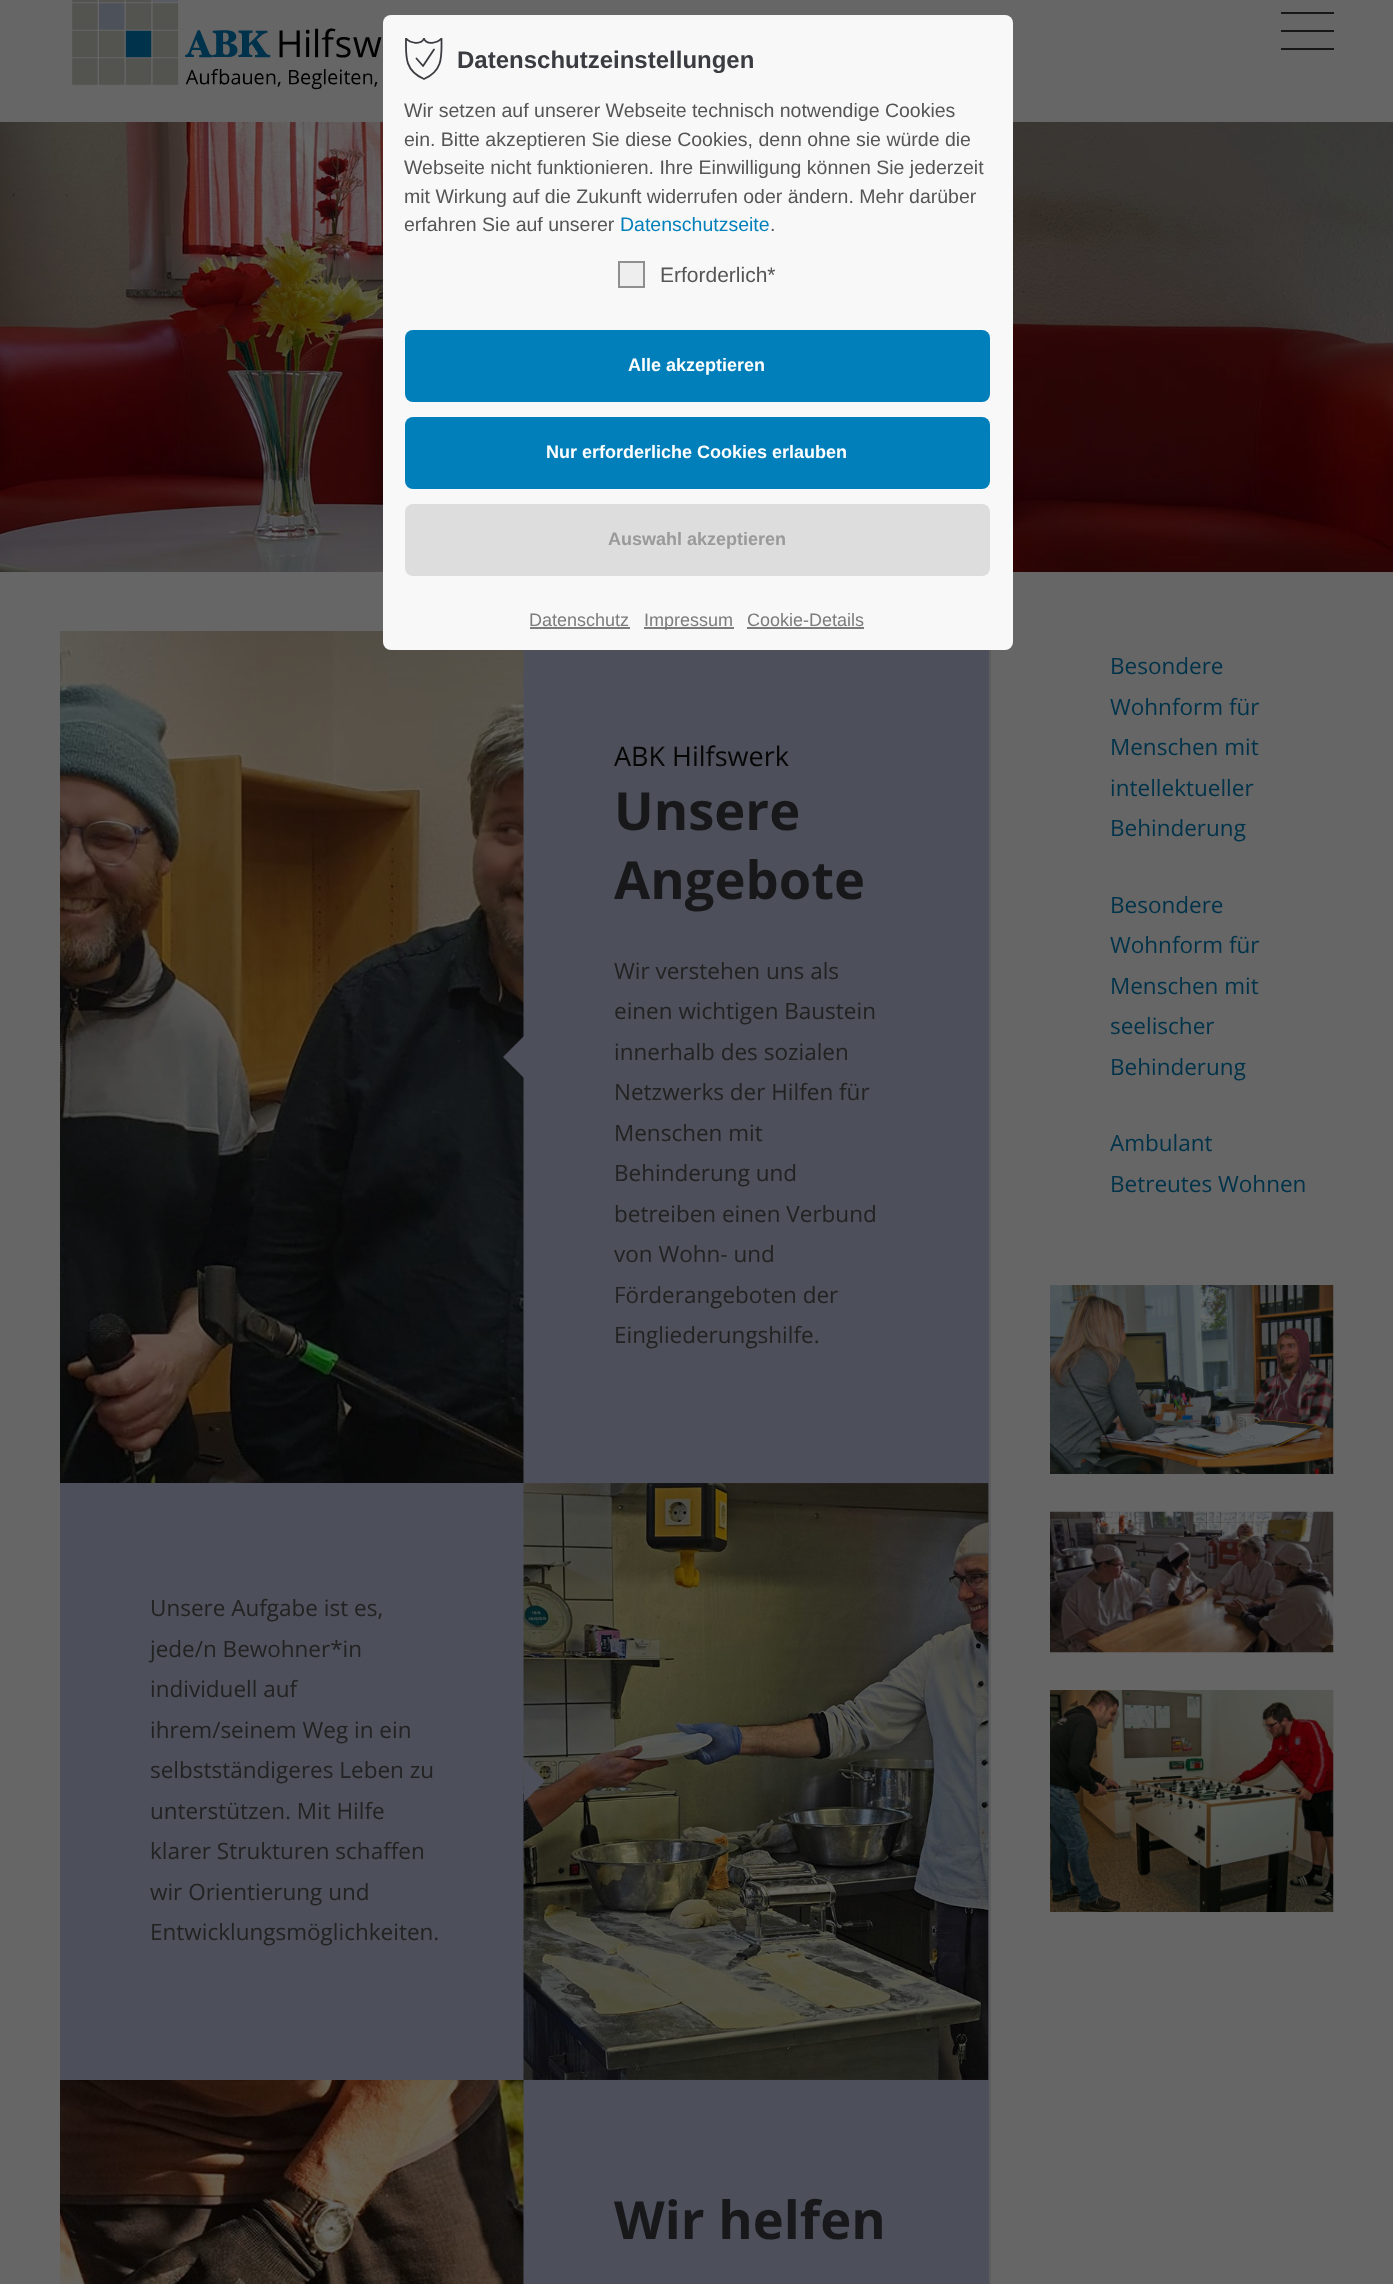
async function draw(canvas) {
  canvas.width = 1393
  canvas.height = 2284
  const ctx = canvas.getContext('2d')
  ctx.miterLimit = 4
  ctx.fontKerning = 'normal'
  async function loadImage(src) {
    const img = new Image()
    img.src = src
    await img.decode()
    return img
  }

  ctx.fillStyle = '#fff'
  ctx.fillRect(0, 0, 1393, 2284)
  ctx.fillStyle = '#666'
  ctx.fillRect(0, 0, 1393, 122)
  ctx.drawImage(await loadImage('image1.png'), 0, 122, 1393, 450)
  ctx.fillRect(0, 572, 1393, 1712)
  ctx.fillStyle = '#4d505a'
  ctx.fillRect(60, 650, 929, 1431)
  ctx.drawImage(await loadImage('image2.png'), 60, 631, 464, 852)
  ctx.fillStyle = '#f8f8f8'
  ctx.beginPath()
  ctx.roundRect(383, 15, 630, 635, 8)
  ctx.fill()
  ctx.save()
  ctx.beginPath()
  ctx.rect(405, 38, 38, 43)
  ctx.clip()
  ctx.beginPath()
  ctx.moveTo(424, 79)
  ctx.bezierCurveTo(404, 70.5, 406, 55.5, 406, 38.5)
  ctx.bezierCurveTo(410, 43, 421, 45.5, 424, 38.5)
  ctx.bezierCurveTo(426.5, 45.5, 437.5, 43, 441.5, 38.5)
  ctx.bezierCurveTo(441.5, 55.5, 443.5, 70.5, 424, 79)
  ctx.closePath()
  ctx.strokeStyle = '#3b3c41'
  ctx.lineWidth = 1.8
  ctx.lineCap = 'round'
  ctx.lineJoin = 'round'
  ctx.stroke()
  ctx.restore()
  ctx.beginPath()
  ctx.moveTo(416.5, 58.5)
  ctx.lineTo(423, 66)
  ctx.lineTo(434, 49.5)
  ctx.strokeStyle = '#3b3c41'
  ctx.lineWidth = 1.8
  ctx.lineCap = 'round'
  ctx.lineJoin = 'round'
  ctx.stroke()
  ctx.font = 'bold 24px Liberation Sans'
  ctx.fillStyle = '#3b3c42'
  ctx.fillText('Datenschutzeinstellungen', 457, 68)
  ctx.font = '19.5px Liberation Sans'
  ctx.fillStyle = '#555'
  ctx.fillText('Wir setzen auf unserer Webseite technisch notwendige Cookies', 404, 117)
  ctx.fillText('ein. Bitte akzeptieren Sie diese Cookies, denn ohne sie würde die', 404, 146)
  ctx.fillText('Webseite nicht funktionieren. Ihre Einwilligung können Sie jederzeit', 404, 174)
  ctx.fillText('mit Wirkung auf die Zukunft widerrufen oder ändern. Mehr darüber', 404, 203)
  ctx.fillText('erfahren Sie auf unserer', 404, 231)
  ctx.fillStyle = '#007fba'
  ctx.fillText('Datenschutzseite', 620, 231)
  ctx.fillStyle = '#555'
  ctx.fillText('.', 770, 231)
  ctx.fillStyle = '#eee'
  ctx.beginPath()
  ctx.rect(619, 262, 25, 25)
  ctx.fill()
  ctx.strokeStyle = '#8f8f8f'
  ctx.lineWidth = 2
  ctx.lineJoin = 'miter'
  ctx.stroke()
  ctx.font = '21px Liberation Sans'
  ctx.fillStyle = '#555'
  ctx.fillText('Erforderlich*', 660, 282)
  ctx.fillStyle = '#007fba'
  ctx.beginPath()
  ctx.roundRect(405, 330, 585, 72, 8)
  ctx.fill()
  ctx.font = 'bold 18px Liberation Sans'
  ctx.fillStyle = '#fff'
  ctx.fillText('Alle akzeptieren', 628, 371)
  ctx.fillStyle = '#007fba'
  ctx.beginPath()
  ctx.roundRect(405, 417, 585, 72, 8)
  ctx.fill()
  ctx.fillStyle = '#fff'
  ctx.fillText('Nur erforderliche Cookies erlauben', 546, 458)
  ctx.fillStyle = '#ddd'
  ctx.beginPath()
  ctx.roundRect(405, 504, 585, 72, 8)
  ctx.fill()
  ctx.fillStyle = '#9a9a9a'
  ctx.fillText('Auswahl akzeptieren', 608, 545)
  ctx.font = '18px Liberation Sans'
  ctx.fillStyle = '#7c7c7c'
  ctx.fillText('Datenschutz', 529, 626)
  ctx.fillRect(530, 627, 100, 2)
  ctx.fillRect(644, 627, 90, 2)
  ctx.fillText('Impressum', 644, 626)
  ctx.fillText('Cookie-Details', 747, 626)
  ctx.fillRect(747, 627, 117, 2)
  ctx.drawImage(await loadImage('image0.png'), 72, 0, 310, 90)
  ctx.fillStyle = '#171717'
  ctx.fillRect(1281, 30, 53, 2)
  ctx.fillRect(1281, 12, 53, 2)
  ctx.fillRect(1281, 48, 53, 2)
  ctx.fillStyle = '#5c5c5c'
  ctx.fillRect(989, 650, 2, 1634)
  ctx.save()
  ctx.beginPath()
  ctx.rect(60, 632, 464, 852)
  ctx.clip()
  ctx.fillStyle = '#4d505a'
  ctx.beginPath()
  ctx.moveTo(503, 1057)
  ctx.lineTo(524, 1036)
  ctx.lineTo(545, 1057)
  ctx.lineTo(524, 1078)
  ctx.closePath()
  ctx.fill()
  ctx.restore()
  ctx.font = '27px Open Sans'
  ctx.fillStyle = '#060606'
  ctx.fillText('ABK Hilfswerk', 614, 766)
  ctx.font = 'bold 52.5px Open Sans'
  ctx.fillStyle = '#18181a'
  ctx.fillText('Unsere', 614, 830)
  ctx.fillText('Angebote', 614, 899)
  ctx.font = '22.5px Open Sans'
  ctx.fillStyle = '#222'
  ctx.fillText('Wir verstehen uns als', 614, 979)
  ctx.fillText('einen wichtigen Baustein', 614, 1019)
  ctx.fillText('innerhalb des sozialen', 614, 1060)
  ctx.fillText('Netzwerks der Hilfen für', 614, 1100)
  ctx.fillText('Menschen mit', 614, 1141)
  ctx.fillText('Behinderung und', 614, 1181)
  ctx.fillText('betreiben einen Verbund', 614, 1222)
  ctx.fillText('von Wohn- und', 614, 1262)
  ctx.fillText('Förderangeboten der', 614, 1303)
  ctx.fillText('Eingliederungshilfe.', 614, 1343)
  ctx.fillText('Unsere Aufgabe ist es,', 150, 1616)
  ctx.fillText('jede/n Bewohner*in', 150, 1657)
  ctx.fillText('individuell auf', 150, 1697)
  ctx.fillText('ihrem/seinem Weg in ein', 150, 1738)
  ctx.fillText('selbstständigeres Leben zu', 150, 1778)
  ctx.fillText('unterstützen. Mit Hilfe', 150, 1819)
  ctx.fillText('klarer Strukturen schaffen', 150, 1859)
  ctx.fillText('wir Orientierung und', 150, 1900)
  ctx.fillText('Entwicklungsmöglichkeiten.', 150, 1940)
  ctx.drawImage(await loadImage('image3.png'), 523, 1483, 466, 597)
  ctx.save()
  ctx.beginPath()
  ctx.rect(524, 1484, 465, 597)
  ctx.clip()
  ctx.fillStyle = '#4d505a'
  ctx.beginPath()
  ctx.moveTo(503, 1781)
  ctx.lineTo(524, 1760)
  ctx.lineTo(545, 1781)
  ctx.lineTo(524, 1802)
  ctx.closePath()
  ctx.fill()
  ctx.restore()
  ctx.fillStyle = '#4d505a'
  ctx.fillRect(523, 2081, 466, 203)
  ctx.drawImage(await loadImage('image4.png'), 60, 2080, 464, 204)
  ctx.font = 'bold 52.5px Open Sans'
  ctx.fillStyle = '#18181a'
  ctx.fillText('Wir helfen', 614, 2239)
  ctx.font = '22.5px Open Sans'
  ctx.fillStyle = '#00334a'
  ctx.fillText('Besondere', 1110, 674)
  ctx.fillText('Wohnform für', 1110, 715)
  ctx.fillText('Menschen mit', 1110, 755)
  ctx.fillText('intellektueller', 1110, 796)
  ctx.fillText('Behinderung', 1110, 836)
  ctx.fillText('Besondere', 1110, 913)
  ctx.fillText('Wohnform für', 1110, 953)
  ctx.fillText('Menschen mit', 1110, 994)
  ctx.fillText('seelischer', 1110, 1034)
  ctx.fillText('Behinderung', 1110, 1075)
  ctx.fillText('Ambulant', 1110, 1151)
  ctx.fillText('Betreutes Wohnen', 1110, 1192)
  ctx.drawImage(await loadImage('image5.png'), 1050, 1285, 284, 189)
  ctx.drawImage(await loadImage('image6.png'), 1050, 1511, 284, 142)
  ctx.drawImage(await loadImage('image7.png'), 1050, 1690, 284, 222)
}

draw(document.querySelector('canvas'))
